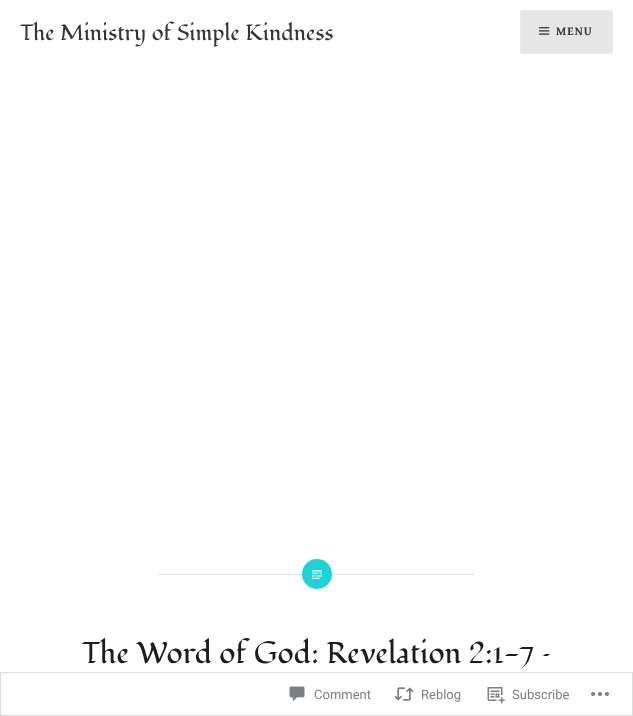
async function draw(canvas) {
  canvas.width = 633
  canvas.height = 716
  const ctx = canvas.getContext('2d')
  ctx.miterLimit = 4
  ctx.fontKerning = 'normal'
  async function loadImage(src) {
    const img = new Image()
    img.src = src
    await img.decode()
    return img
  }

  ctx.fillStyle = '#fff'
  ctx.fillRect(0, 0, 633, 716)
  ctx.font = '22px Fondamento'
  ctx.fillStyle = '#353535'
  ctx.fillText('The Ministry of Simple Kindness', 20, 40)
  ctx.fillStyle = '#e6e6e6'
  ctx.beginPath()
  ctx.rect(520.5, 10.5, 92, 43)
  ctx.fill()
  ctx.strokeStyle = '#ebebeb'
  ctx.stroke()
  ctx.drawImage(await loadImage('image0.png'), 539, 27, 11, 8)
  ctx.letterSpacing = '1px'
  ctx.font = 'bold 12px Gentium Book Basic'
  ctx.fillStyle = '#353535'
  ctx.fillText('MENU', 556, 35)
  ctx.fillStyle = '#e0e0e0'
  ctx.fillRect(158, 574, 317, 1)
  ctx.fillStyle = '#1ed3d7'
  ctx.beginPath()
  ctx.arc(317, 574, 15, 0, 2 * Math.PI)
  ctx.fill()
  ctx.drawImage(await loadImage('image1.png'), 312, 570, 10, 9)
  ctx.letterSpacing = '0px'
  ctx.font = '30px Fondamento'
  ctx.fillStyle = '#1a1c1e'
  ctx.fillText('The Word of God: Revelation 2:1-7 –', 82, 663)
  ctx.strokeStyle = '#dddddf'
  ctx.strokeRect(0.5, 672.5, 632, 43)
  ctx.drawImage(await loadImage('image2.png'), 289, 686, 16, 16)
  ctx.font = '13px Roboto'
  ctx.fillStyle = '#7b7f84'
  ctx.fillText('Comment', 314, 699)
  ctx.drawImage(await loadImage('image3.png'), 394, 687, 20, 14)
  ctx.fillText('Reblog', 421, 699)
  ctx.drawImage(await loadImage('image4.png'), 487, 687, 18, 17)
  ctx.fillText('Subscribe', 512, 699)
  ctx.drawImage(await loadImage('image5.png'), 591, 692, 18, 4)
}

draw(document.querySelector('canvas'))
